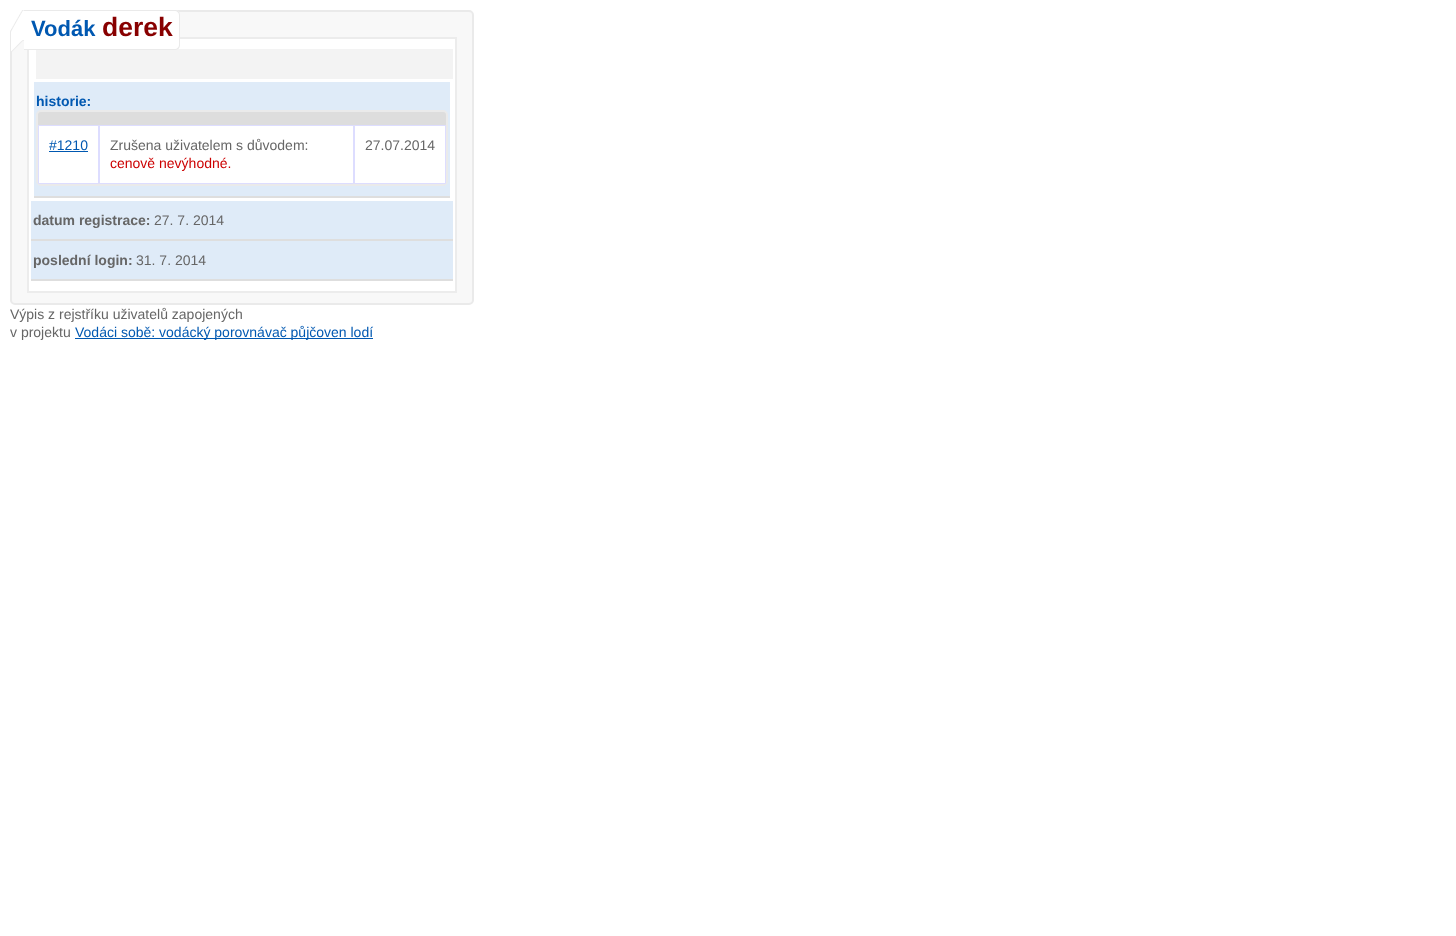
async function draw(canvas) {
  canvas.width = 1456
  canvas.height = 936
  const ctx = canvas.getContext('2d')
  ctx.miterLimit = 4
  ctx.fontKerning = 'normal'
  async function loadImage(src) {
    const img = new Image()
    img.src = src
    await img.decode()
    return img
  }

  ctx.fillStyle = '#fff'
  ctx.fillRect(0, 0, 1456, 936)
  ctx.fillStyle = '#f8f8f8'
  ctx.beginPath()
  ctx.roundRect(11, 11, 462, 293, 4)
  ctx.fill()
  ctx.strokeStyle = '#eaeaea'
  ctx.lineWidth = 2
  ctx.stroke()
  ctx.drawImage(await loadImage('image0.png'), 10, 10, 14, 42)
  ctx.fillStyle = '#fff'
  ctx.beginPath()
  ctx.rect(28, 38, 428, 254)
  ctx.fill()
  ctx.strokeStyle = '#ececec'
  ctx.stroke()
  ctx.fillStyle = '#f3f3f3'
  ctx.fillRect(36, 49, 417, 30)
  ctx.fillStyle = '#fff'
  ctx.beginPath()
  ctx.roundRect(24, 10, 156, 40, [0, 5, 5, 0])
  ctx.fill()
  ctx.fillStyle = '#eaeaea'
  ctx.beginPath()
  ctx.moveTo(24, 10)
  ctx.lineTo(175, 10)
  ctx.bezierCurveTo(178, 10, 180, 12, 180, 15)
  ctx.lineTo(180, 45)
  ctx.bezierCurveTo(180, 48, 178, 50, 175, 50)
  ctx.lineTo(24, 50)
  ctx.closePath()
  ctx.moveTo(24, 11)
  ctx.lineTo(175, 11)
  ctx.bezierCurveTo(177, 11, 179, 13, 179, 15)
  ctx.lineTo(179, 45)
  ctx.bezierCurveTo(179, 47, 177, 49, 175, 49)
  ctx.lineTo(24, 49)
  ctx.closePath()
  ctx.fill('evenodd')
  ctx.font = 'bold 22px Liberation Sans'
  ctx.fillStyle = '#0058b1'
  ctx.fillText('Vodák', 31, 36)
  ctx.font = 'bold 26.5px Liberation Sans'
  ctx.fillStyle = '#800'
  ctx.fillText('derek', 102, 36)
  ctx.fillStyle = '#dfebf8'
  ctx.fillRect(34, 82, 416, 114)
  ctx.fillStyle = '#dedede'
  ctx.fillRect(34, 196, 416, 2)
  ctx.font = 'bold 14px Liberation Sans'
  ctx.fillStyle = '#0058b1'
  ctx.fillText('historie:', 36, 106)
  ctx.fillStyle = '#ddd'
  ctx.beginPath()
  ctx.roundRect(37, 111, 410, 74, 4)
  ctx.fill()
  ctx.strokeStyle = '#eaeaea'
  ctx.stroke()
  ctx.fillStyle = '#fff'
  ctx.beginPath()
  ctx.rect(38.5, 125.5, 60, 58)
  ctx.fill()
  ctx.strokeStyle = '#ddf'
  ctx.lineWidth = 1
  ctx.stroke()
  ctx.font = '14px Liberation Sans'
  ctx.fillStyle = '#0058b1'
  ctx.fillText('#1210', 49, 150)
  ctx.fillRect(49, 151, 39, 1)
  ctx.fillStyle = '#fff'
  ctx.beginPath()
  ctx.rect(99.5, 125.5, 254, 58)
  ctx.fill()
  ctx.stroke()
  ctx.fillStyle = '#666'
  ctx.fillText('Zrušena uživatelem s důvodem:', 110, 150)
  ctx.fillStyle = '#c00'
  ctx.fillText('cenově nevýhodné.', 110, 168)
  ctx.fillStyle = '#fff'
  ctx.beginPath()
  ctx.rect(354.5, 125.5, 91, 58)
  ctx.fill()
  ctx.stroke()
  ctx.fillStyle = '#666'
  ctx.fillText('27.07.2014', 365, 150)
  ctx.fillStyle = '#dfebf8'
  ctx.fillRect(31, 201, 422, 38)
  ctx.fillStyle = '#dedede'
  ctx.fillRect(31, 239, 422, 2)
  ctx.font = 'bold 14px Liberation Sans'
  ctx.fillStyle = '#666'
  ctx.fillText('datum registrace:', 33, 225)
  ctx.font = '14px Liberation Sans'
  ctx.fillText('27. 7. 2014', 154, 225)
  ctx.fillStyle = '#dfebf8'
  ctx.fillRect(31, 241, 422, 38)
  ctx.fillStyle = '#dedede'
  ctx.fillRect(31, 279, 422, 2)
  ctx.font = 'bold 14px Liberation Sans'
  ctx.fillStyle = '#666'
  ctx.fillText('poslední login:', 33, 265)
  ctx.font = '14px Liberation Sans'
  ctx.fillText('31. 7. 2014', 136, 265)
  ctx.fillText('Výpis z rejstříku uživatelů zapojených', 10, 319)
  ctx.fillText('v projektu', 10, 337)
  ctx.fillStyle = '#0058b1'
  ctx.fillRect(75, 338, 298, 1)
  ctx.fillText('Vodáci sobě: vodácký porovnávač půjčoven lodí', 75, 337)
}

draw(document.querySelector('canvas'))
